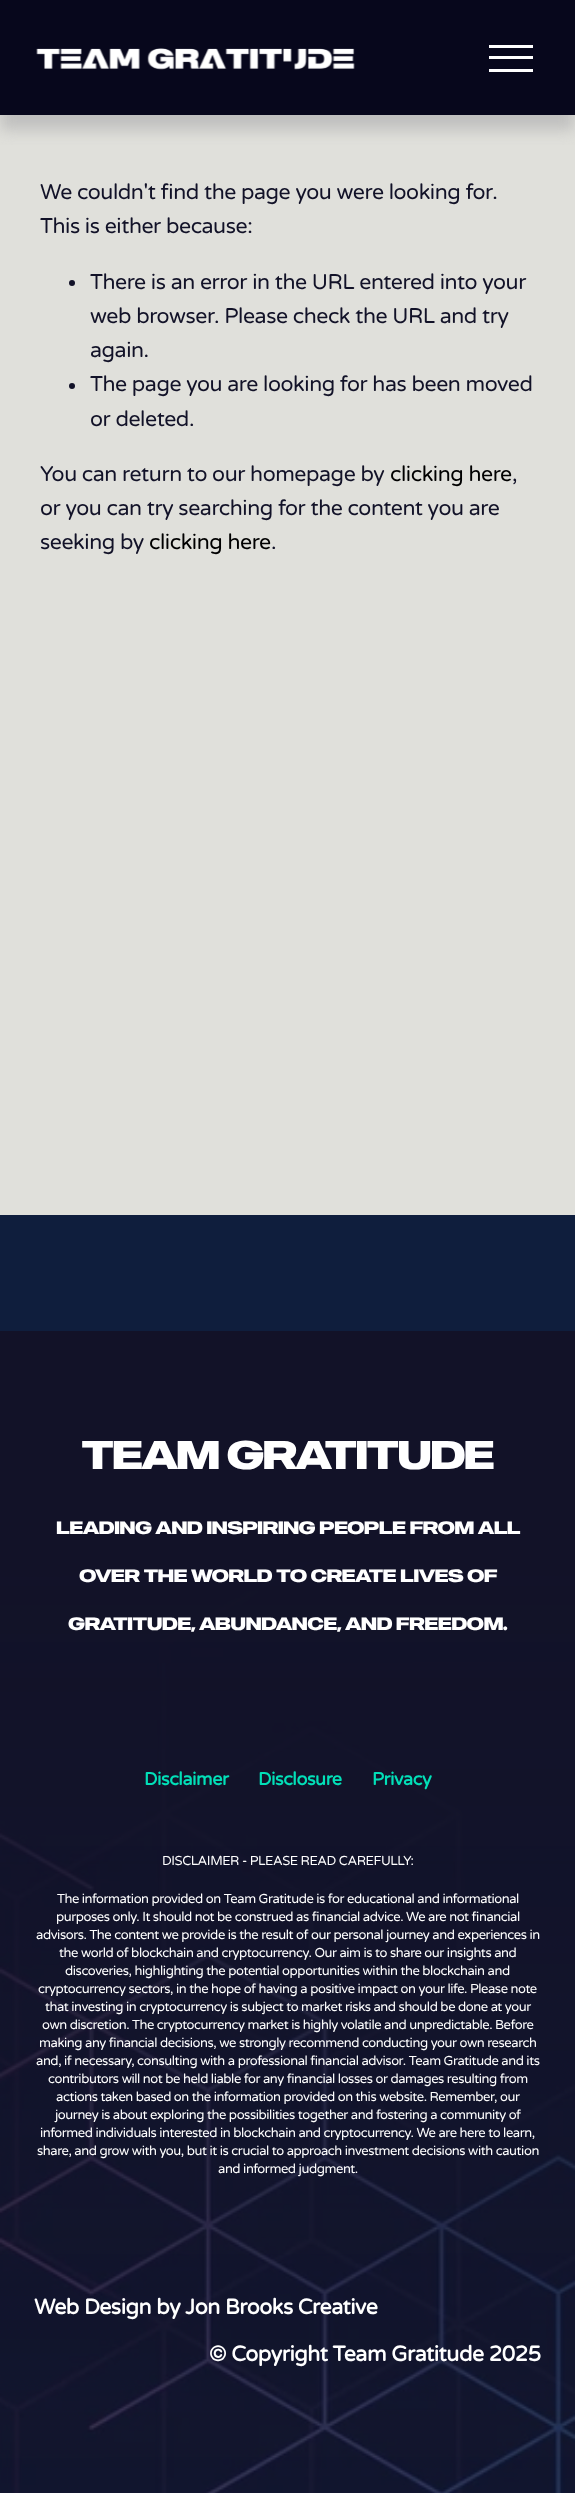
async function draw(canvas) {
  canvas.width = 575
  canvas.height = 2493
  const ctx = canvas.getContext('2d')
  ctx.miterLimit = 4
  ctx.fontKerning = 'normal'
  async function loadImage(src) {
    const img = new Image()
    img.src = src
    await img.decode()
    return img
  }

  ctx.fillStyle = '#e0e0db'
  ctx.fillRect(0, 0, 575, 2493)
  ctx.fillStyle = '#07071c'
  ctx.fillRect(0, 0, 575, 115)
  ctx.save()
  ctx.beginPath()
  ctx.rect(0, 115, 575, 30)
  ctx.clip()
  ctx.fillStyle = '#bfbfbe'
  ctx.filter = 'blur(7.5px)'
  ctx.beginPath()
  ctx.rect(0, 15, 575, 115)
  ctx.fill()
  ctx.filter = 'none'
  ctx.restore()
  ctx.drawImage(await loadImage('image0.png'), 36, 48, 319, 22)
  ctx.fillStyle = '#fff'
  ctx.fillRect(489, 45, 44, 3)
  ctx.fillRect(489, 56, 44, 3)
  ctx.fillRect(489, 69, 44, 3)
  ctx.letterSpacing = '-0.43px'
  ctx.font = '21.35px Varela Round'
  ctx.fillStyle = '#121228'
  ctx.fillText('We couldn\'t find the page you were looking for.', 40, 199)
  ctx.fillText('This is either because:', 40, 233)
  ctx.beginPath()
  ctx.arc(72, 283, 3, 0, 2 * Math.PI)
  ctx.fill()
  ctx.fillText('There is an error in the URL entered into your', 90, 289)
  ctx.fillText('web browser. Please check the URL and try', 90, 323)
  ctx.fillText('again.', 90, 357)
  ctx.beginPath()
  ctx.arc(72, 386, 3, 0, 2 * Math.PI)
  ctx.fill()
  ctx.fillText('The page you are looking for has been moved', 90, 391)
  ctx.fillText('or deleted.', 90, 426)
  ctx.fillText('You can return to our homepage by', 40, 481)
  ctx.fillStyle = '#000'
  ctx.fillText('clicking here', 390, 481)
  ctx.fillStyle = '#121228'
  ctx.fillText(',', 512, 481)
  ctx.fillText('or you can try searching for the content you are', 40, 515)
  ctx.fillText('seeking by', 40, 549)
  ctx.fillStyle = '#000'
  ctx.fillText('clicking here', 149, 549)
  ctx.fillStyle = '#121228'
  ctx.fillText('.', 271, 549)
  ctx.drawImage(await loadImage('image1.png'), 0, 1215, 575, 1278)
  ctx.letterSpacing = '-2.25px'
  ctx.font = 'bold 40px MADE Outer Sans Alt'
  ctx.fillStyle = '#fff'
  ctx.fillText('TEAM GRATITUDE', 81, 1469)
  ctx.letterSpacing = '-0.7px'
  ctx.font = 'bold 18px MADE Outer Sans Alt'
  ctx.fillText('LEADING AND INSPIRING PEOPLE FROM ALL', 56, 1534)
  ctx.fillText('OVER THE WORLD TO CREATE LIVES OF', 79, 1582)
  ctx.fillText('GRATITUDE, ABUNDANCE, AND FREEDOM.', 68, 1630)
  ctx.letterSpacing = '-0.43px'
  ctx.font = 'bold 18px Varela Round'
  ctx.fillStyle = '#02e0b8'
  ctx.fillText('Disclaimer', 144, 1785)
  ctx.fillText('Disclosure', 258, 1785)
  ctx.fillText('Privacy', 372, 1785)
  ctx.font = '13px Varela Round'
  ctx.fillStyle = '#fff'
  ctx.fillText('DISCLAIMER - PLEASE READ CAREFULLY:', 162, 1865)
  ctx.fillText('The information provided on Team Gratitude is for educational and informational', 57, 1903)
  ctx.fillText('purposes only. It should not be construed as financial advice. We are not financial', 56, 1921)
  ctx.fillText('advisors. The content we provide is the result of our personal journey and experiences in', 36, 1939)
  ctx.fillText('the world of blockchain and cryptocurrency. Our aim is to share our insights and', 59, 1957)
  ctx.fillText('discoveries, highlighting the potential opportunities within the blockchain and', 65, 1975)
  ctx.fillText('cryptocurrency sectors, in the hope of having a positive impact on your life. Please note', 38, 1993)
  ctx.fillText('that investing in cryptocurrency is subject to market risks and should be done at your', 45, 2011)
  ctx.fillText('own discretion. The cryptocurrency market is highly volatile and unpredictable. Before', 42, 2029)
  ctx.fillText('making any financial decisions, we strongly recommend conducting your own research', 39, 2047)
  ctx.fillText('and, if necessary, consulting with a professional financial advisor. Team Gratitude and its', 36, 2065)
  ctx.fillText('contributors will not be held liable for any financial losses or damages resulting from', 48, 2083)
  ctx.fillText('actions taken based on the information provided on this website. Remember, our', 56, 2101)
  ctx.fillText('journey is about exploring the possibilities together and fostering a community of', 55, 2119)
  ctx.fillText('informed individuals interested in blockchain and cryptocurrency. We are here to learn,', 40, 2137)
  ctx.fillText('share, and grow with you, but it is crucial to approach investment decisions with caution', 37, 2155)
  ctx.fillText('and informed judgment.', 218, 2173)
  ctx.font = 'bold 21.35px Varela Round'
  ctx.fillText('Web Design by Jon Brooks Creative', 34, 2314)
  ctx.fillText('© Copyright Team Gratitude 2025', 209, 2361)
}

draw(document.querySelector('canvas'))
